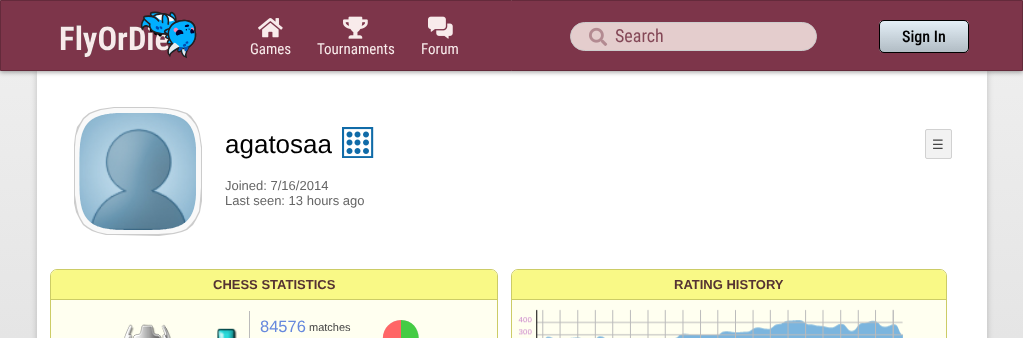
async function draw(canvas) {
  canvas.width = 1023
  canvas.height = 338
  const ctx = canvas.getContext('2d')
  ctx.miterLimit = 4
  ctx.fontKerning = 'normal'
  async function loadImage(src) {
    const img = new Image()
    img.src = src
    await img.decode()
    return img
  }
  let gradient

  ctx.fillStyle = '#fff'
  ctx.fillRect(0, 0, 1023, 338)
  gradient = ctx.createLinearGradient(512, 338, 512, 0)
  gradient.addColorStop(0, '#e5e5e5')
  gradient.addColorStop(1, '#f0f0f0')
  ctx.fillStyle = gradient
  ctx.fillRect(0, 71, 1023, 267)
  ctx.fillStyle = '#00000033'
  ctx.filter = 'blur(3px)'
  ctx.beginPath()
  ctx.rect(37, 72, 950, 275)
  ctx.fill()
  ctx.filter = 'none'
  ctx.fillStyle = '#fff'
  ctx.fillRect(37, 71, 950, 267)
  ctx.fillStyle = '#00000066'
  ctx.filter = 'blur(2.5px)'
  ctx.beginPath()
  ctx.rect(0, 1, 1023, 71)
  ctx.fill()
  ctx.filter = 'none'
  ctx.fillStyle = '#7d354a'
  ctx.beginPath()
  ctx.rect(0.5, 0.5, 1022, 70)
  ctx.fill()
  ctx.strokeStyle = '#642a3b'
  ctx.stroke()
  ctx.drawImage(await loadImage('image0.png'), 60, 11, 137, 48)
  ctx.fillStyle = '#e4cdcd'
  ctx.beginPath()
  ctx.roundRect(570.5, 22.5, 246, 28, 14)
  ctx.fill()
  ctx.strokeStyle = '#ccc'
  ctx.stroke()
  ctx.drawImage(await loadImage('image1.png'), 589, 27, 19, 19)
  ctx.font = '18px Roboto Condensed'
  ctx.fillStyle = '#844857'
  ctx.fillText('Search', 615, 42)
  ctx.save()
  ctx.beginPath()
  ctx.roundRect(879, 20, 90, 33, 5)
  ctx.clip()
  gradient = ctx.createLinearGradient(924, 21, 924, 52)
  gradient.addColorStop(0, '#fff')
  gradient.addColorStop(1, '#bdbdbd')
  ctx.fillStyle = gradient
  ctx.fillRect(879, 21, 90, 31)
  ctx.restore()
  ctx.fillStyle = '#8ab9db3b'
  ctx.beginPath()
  ctx.roundRect(879.5, 20.5, 89, 32, 4.5)
  ctx.fill()
  ctx.strokeStyle = '#000'
  ctx.stroke()
  ctx.font = '500 16px Roboto Condensed'
  ctx.fillStyle = '#000'
  ctx.fillText('Sign In', 902, 42)
  ctx.drawImage(await loadImage('image2.png'), 258, 18, 25, 20)
  ctx.font = '15px Roboto Condensed'
  ctx.fillStyle = '#f8ebeb'
  ctx.fillText('Games', 250, 54)
  ctx.drawImage(await loadImage('image3.png'), 343, 16, 25, 23)
  ctx.fillText('Tournaments', 317, 54)
  ctx.drawImage(await loadImage('image4.png'), 428, 16, 25, 23)
  ctx.fillText('Forum', 421, 54)
  ctx.fillStyle = '#ccc'
  ctx.beginPath()
  ctx.moveTo(74, 198)
  ctx.lineTo(74, 145)
  ctx.lineTo(75, 136)
  ctx.lineTo(77, 127)
  ctx.lineTo(80, 123)
  ctx.lineTo(83, 118)
  ctx.lineTo(89, 113)
  ctx.lineTo(94, 111)
  ctx.lineTo(100, 109)
  ctx.lineTo(114, 107)
  ctx.lineTo(153, 107)
  ctx.lineTo(167, 108)
  ctx.lineTo(178, 110)
  ctx.lineTo(187, 113)
  ctx.lineTo(191, 116)
  ctx.lineTo(196, 123)
  ctx.lineTo(198, 127)
  ctx.lineTo(200, 134)
  ctx.lineTo(202, 147)
  ctx.lineTo(202, 194)
  ctx.lineTo(202, 201)
  ctx.lineTo(200, 212)
  ctx.lineTo(196, 220)
  ctx.lineTo(193, 225)
  ctx.lineTo(187, 230)
  ctx.lineTo(182, 232)
  ctx.lineTo(174, 234)
  ctx.lineTo(159, 236)
  ctx.lineTo(114, 235)
  ctx.lineTo(106, 235)
  ctx.lineTo(98, 233)
  ctx.lineTo(92, 231)
  ctx.lineTo(87, 228)
  ctx.lineTo(83, 225)
  ctx.lineTo(80, 220)
  ctx.lineTo(76, 212)
  ctx.lineTo(74, 203)
  ctx.closePath()
  ctx.fill()
  ctx.fillStyle = '#f9f9f9'
  ctx.beginPath()
  ctx.moveTo(75, 195)
  ctx.lineTo(75, 147)
  ctx.lineTo(76, 136)
  ctx.lineTo(79, 128)
  ctx.lineTo(81, 124)
  ctx.lineTo(84, 119)
  ctx.lineTo(90, 114)
  ctx.lineTo(95, 112)
  ctx.lineTo(101, 110)
  ctx.lineTo(114, 108)
  ctx.lineTo(152, 108)
  ctx.lineTo(167, 109)
  ctx.lineTo(177, 111)
  ctx.lineTo(186, 114)
  ctx.lineTo(191, 119)
  ctx.lineTo(195, 124)
  ctx.lineTo(197, 128)
  ctx.lineTo(199, 134)
  ctx.lineTo(201, 148)
  ctx.lineTo(201, 187)
  ctx.lineTo(200, 200)
  ctx.lineTo(199, 211)
  ctx.lineTo(195, 219)
  ctx.lineTo(191, 224)
  ctx.lineTo(186, 229)
  ctx.lineTo(181, 231)
  ctx.lineTo(173, 233)
  ctx.lineTo(158, 234)
  ctx.lineTo(114, 234)
  ctx.lineTo(107, 234)
  ctx.lineTo(98, 232)
  ctx.lineTo(93, 230)
  ctx.lineTo(88, 227)
  ctx.lineTo(84, 224)
  ctx.lineTo(81, 219)
  ctx.lineTo(79, 215)
  ctx.lineTo(77, 208)
  ctx.closePath()
  ctx.fill()
  ctx.drawImage(await loadImage('image5.png'), 79, 113, 117, 117)
  ctx.font = '26px Liberation Sans'
  ctx.fillStyle = '#000'
  ctx.fillText('agatosaa', 225, 153)
  ctx.drawImage(await loadImage('image6.png'), 342, 127, 32, 31)
  ctx.fillStyle = '#f2f2f2'
  ctx.beginPath()
  ctx.roundRect(925.5, 129.5, 26, 29, 1.5)
  ctx.fill()
  ctx.strokeStyle = '#d1d1d1'
  ctx.stroke()
  ctx.font = '13px DejaVu Sans'
  ctx.fillStyle = '#444'
  ctx.fillText('☰', 932, 149)
  ctx.font = '13px Liberation Sans'
  ctx.fillStyle = '#666'
  ctx.fillText('Joined: 7/16/2014', 225, 190)
  ctx.fillText('Last seen: 13 hours ago', 225, 205)
  ctx.fillStyle = '#fffff0'
  ctx.beginPath()
  ctx.roundRect(50.5, 269.5, 447, 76, 6.5)
  ctx.fill()
  ctx.strokeStyle = '#cc6'
  ctx.stroke()
  ctx.fillStyle = '#f9f986'
  ctx.beginPath()
  ctx.roundRect(51, 270, 446, 30, [6, 6, 0, 0])
  ctx.fill()
  ctx.fillStyle = '#cc6'
  ctx.fillRect(51, 299, 446, 1)
  ctx.font = 'bold 13px Liberation Sans'
  ctx.fillStyle = '#533'
  ctx.fillText('CHESS STATISTICS', 213, 289)
  ctx.drawImage(await loadImage('image7.png'), 124, 324, 47, 14)
  ctx.drawImage(await loadImage('image8.png'), 217, 328, 20, 10)
  ctx.fillStyle = '#bbb'
  ctx.fillRect(249, 311, 1, 27)
  ctx.font = '16.5px Liberation Sans'
  ctx.fillStyle = '#68d'
  ctx.fillText('84576', 260, 332)
  ctx.font = '11px Liberation Sans'
  ctx.fillStyle = '#444'
  ctx.fillText('matches', 309, 331)
  ctx.fillStyle = '#ddd'
  ctx.beginPath()
  ctx.arc(401, 338, 18, 0, 2 * Math.PI)
  ctx.fill()
  ctx.fillStyle = '#f66'
  ctx.beginPath()
  ctx.moveTo(401, 320)
  ctx.lineTo(401, 338)
  ctx.lineTo(383, 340.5)
  ctx.bezierCurveTo(381.5, 330, 390, 320, 401, 320)
  ctx.closePath()
  ctx.fill()
  ctx.fillStyle = '#4c4'
  ctx.beginPath()
  ctx.moveTo(401, 320)
  ctx.lineTo(401, 338)
  ctx.lineTo(407, 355)
  ctx.bezierCurveTo(425.5, 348.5, 421, 320, 401, 320)
  ctx.closePath()
  ctx.fill()
  ctx.fillStyle = '#fffff0'
  ctx.beginPath()
  ctx.roundRect(511.5, 269.5, 435, 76, 6.5)
  ctx.fill()
  ctx.stroke()
  ctx.fillStyle = '#f9f986'
  ctx.beginPath()
  ctx.roundRect(512, 270, 434, 30, [6, 6, 0, 0])
  ctx.fill()
  ctx.fillStyle = '#cc6'
  ctx.fillRect(512, 299, 434, 1)
  ctx.font = 'bold 13px Liberation Sans'
  ctx.fillStyle = '#533'
  ctx.fillText('RATING HISTORY', 674, 289)
  ctx.drawImage(await loadImage('image9.png'), 518, 309, 385, 29)
}

draw(document.querySelector('canvas'))
